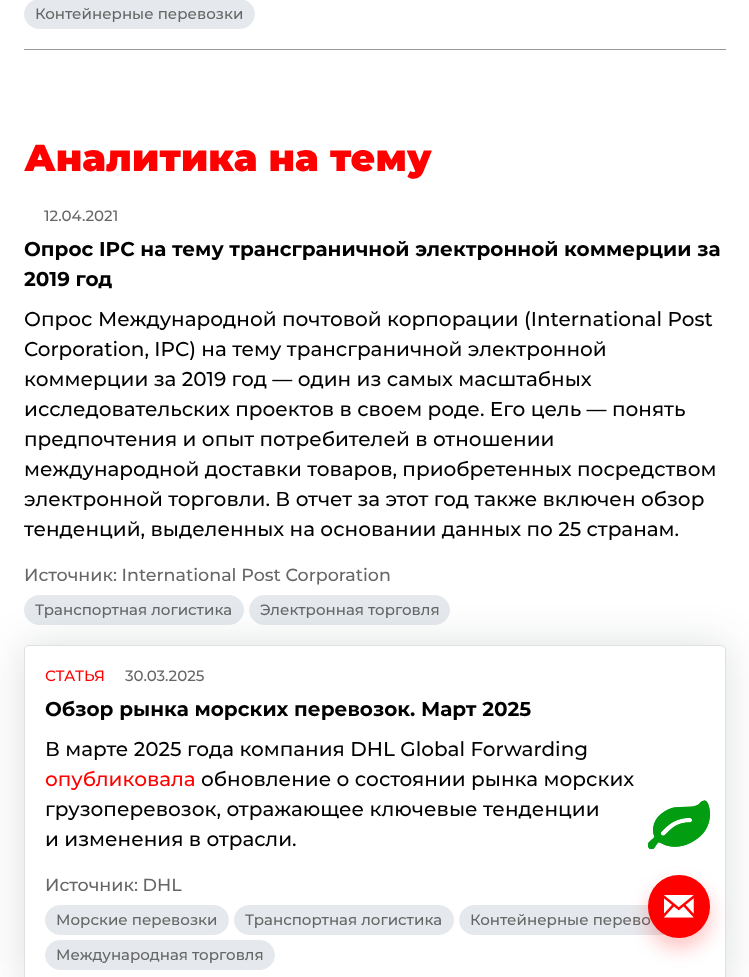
async function draw(canvas) {
  canvas.width = 749
  canvas.height = 977
  const ctx = canvas.getContext('2d')
  ctx.miterLimit = 4
  ctx.fontKerning = 'normal'
  async function loadImage(src) {
    const img = new Image()
    img.src = src
    await img.decode()
    return img
  }

  ctx.fillStyle = '#fff'
  ctx.fillRect(0, 0, 749, 977)
  ctx.fillStyle = '#999'
  ctx.fillRect(24, 49, 702, 1)
  ctx.fillStyle = '#e5e9ed'
  ctx.beginPath()
  ctx.roundRect(24.5, -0.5, 230, 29, 14.5)
  ctx.fill()
  ctx.strokeStyle = '#e5e9ed'
  ctx.stroke()
  ctx.font = '500 15px Montserrat'
  ctx.fillStyle = '#666'
  ctx.fillText('Контейнерные перевозки', 35, 19)
  ctx.font = '900 37.5px Montserrat'
  ctx.fillStyle = '#f00'
  ctx.fillText('Аналитика на тему', 24, 171)
  ctx.font = '500 15px Montserrat'
  ctx.fillStyle = '#666'
  ctx.fillText('12.04.2021', 44, 221)
  ctx.font = 'bold 20px Montserrat'
  ctx.fillStyle = '#000'
  ctx.fillText('Опрос IPC на тему трансграничной электронной коммерции за', 24, 256)
  ctx.fillText('2019 год', 24, 286)
  ctx.font = '500 20px Montserrat'
  ctx.fillText('Опрос Международной почтовой корпорации (International Post', 24, 326)
  ctx.fillText('Corporation, IPC) на тему трансграничной электронной', 24, 356)
  ctx.fillText('коммерции за 2019 год — один из самых масштабных', 24, 386)
  ctx.fillText('исследовательских проектов в своем роде. Его цель — понять', 24, 416)
  ctx.fillText('предпочтения и опыт потребителей в отношении', 24, 446)
  ctx.fillText('международной доставки товаров, приобретенных посредством', 24, 476)
  ctx.fillText('электронной торговли. В отчет за этот год также включен обзор', 24, 506)
  ctx.fillText('тенденций, выделенных на основании данных по 25 странам.', 24, 536)
  ctx.font = '500 17.5px Montserrat'
  ctx.fillStyle = '#666'
  ctx.fillText('Источник: International Post Corporation', 24, 581)
  ctx.fillStyle = '#e5e9ed'
  ctx.beginPath()
  ctx.roundRect(24.5, 595.5, 219, 29, 14.5)
  ctx.fill()
  ctx.stroke()
  ctx.font = '500 15px Montserrat'
  ctx.fillStyle = '#666'
  ctx.fillText('Транспортная логистика', 35, 615)
  ctx.fillStyle = '#e5e9ed'
  ctx.beginPath()
  ctx.roundRect(249.5, 595.5, 200, 29, 14.5)
  ctx.fill()
  ctx.stroke()
  ctx.fillStyle = '#666'
  ctx.fillText('Электронная торговля', 260, 615)
  ctx.fillStyle = '#26323829'
  ctx.filter = 'blur(20px)'
  ctx.beginPath()
  ctx.roundRect(24, 645, 702, 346, 5)
  ctx.fill()
  ctx.filter = 'none'
  ctx.fillStyle = '#fff'
  ctx.beginPath()
  ctx.roundRect(24.5, 645.5, 701, 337, 4.5)
  ctx.fill()
  ctx.strokeStyle = '#e0e0e0'
  ctx.stroke()
  ctx.fillStyle = '#f00'
  ctx.fillText('СТАТЬЯ', 45, 681)
  ctx.fillStyle = '#666'
  ctx.fillText('30.03.2025', 125, 681)
  ctx.font = 'bold 20px Montserrat'
  ctx.fillStyle = '#000'
  ctx.fillText('Обзор рынка морских перевозок. Март 2025', 45, 716)
  ctx.font = '500 20px Montserrat'
  ctx.fillText('В марте 2025 года компания DHL Global Forwarding', 45, 756)
  ctx.fillStyle = '#f00'
  ctx.fillText('опубликовала', 45, 786)
  ctx.fillStyle = '#000'
  ctx.fillText('обновление о состоянии рынка морских', 201, 786)
  ctx.fillText('грузоперевозок, отражающее ключевые тенденции', 45, 816)
  ctx.fillText('и изменения в отрасли.', 45, 846)
  ctx.font = '500 17.5px Montserrat'
  ctx.fillStyle = '#666'
  ctx.fillText('Источник: DHL', 45, 891)
  ctx.fillStyle = '#e5e9ed'
  ctx.beginPath()
  ctx.roundRect(45.5, 905.5, 183, 29, 14.5)
  ctx.fill()
  ctx.strokeStyle = '#e5e9ed'
  ctx.stroke()
  ctx.font = '500 15px Montserrat'
  ctx.fillStyle = '#666'
  ctx.fillText('Морские перевозки', 56, 925)
  ctx.fillStyle = '#e5e9ed'
  ctx.beginPath()
  ctx.roundRect(234.5, 905.5, 219, 29, 14.5)
  ctx.fill()
  ctx.stroke()
  ctx.fillStyle = '#666'
  ctx.fillText('Транспортная логистика', 245, 925)
  ctx.fillStyle = '#e5e9ed'
  ctx.beginPath()
  ctx.roundRect(459.5, 905.5, 229, 29, 14.5)
  ctx.fill()
  ctx.stroke()
  ctx.fillStyle = '#666'
  ctx.fillText('Контейнерные перево', 470, 925)
  ctx.fillStyle = '#e5e9ed'
  ctx.beginPath()
  ctx.roundRect(45.5, 940.5, 229, 29, 14.5)
  ctx.fill()
  ctx.stroke()
  ctx.fillStyle = '#666'
  ctx.fillText('Международная торговля', 56, 960)
  ctx.drawImage(await loadImage('image0.png'), 648, 800, 62, 49)
  ctx.fillStyle = '#ff00003d'
  ctx.filter = 'blur(10px)'
  ctx.beginPath()
  ctx.roundRect(648, 885, 62, 63, 31)
  ctx.fill()
  ctx.filter = 'none'
  ctx.fillStyle = '#f00'
  ctx.beginPath()
  ctx.roundRect(648, 875, 62, 63, 31)
  ctx.fill()
  ctx.drawImage(await loadImage('image1.png'), 664, 895, 30, 23)
}

draw(document.querySelector('canvas'))
